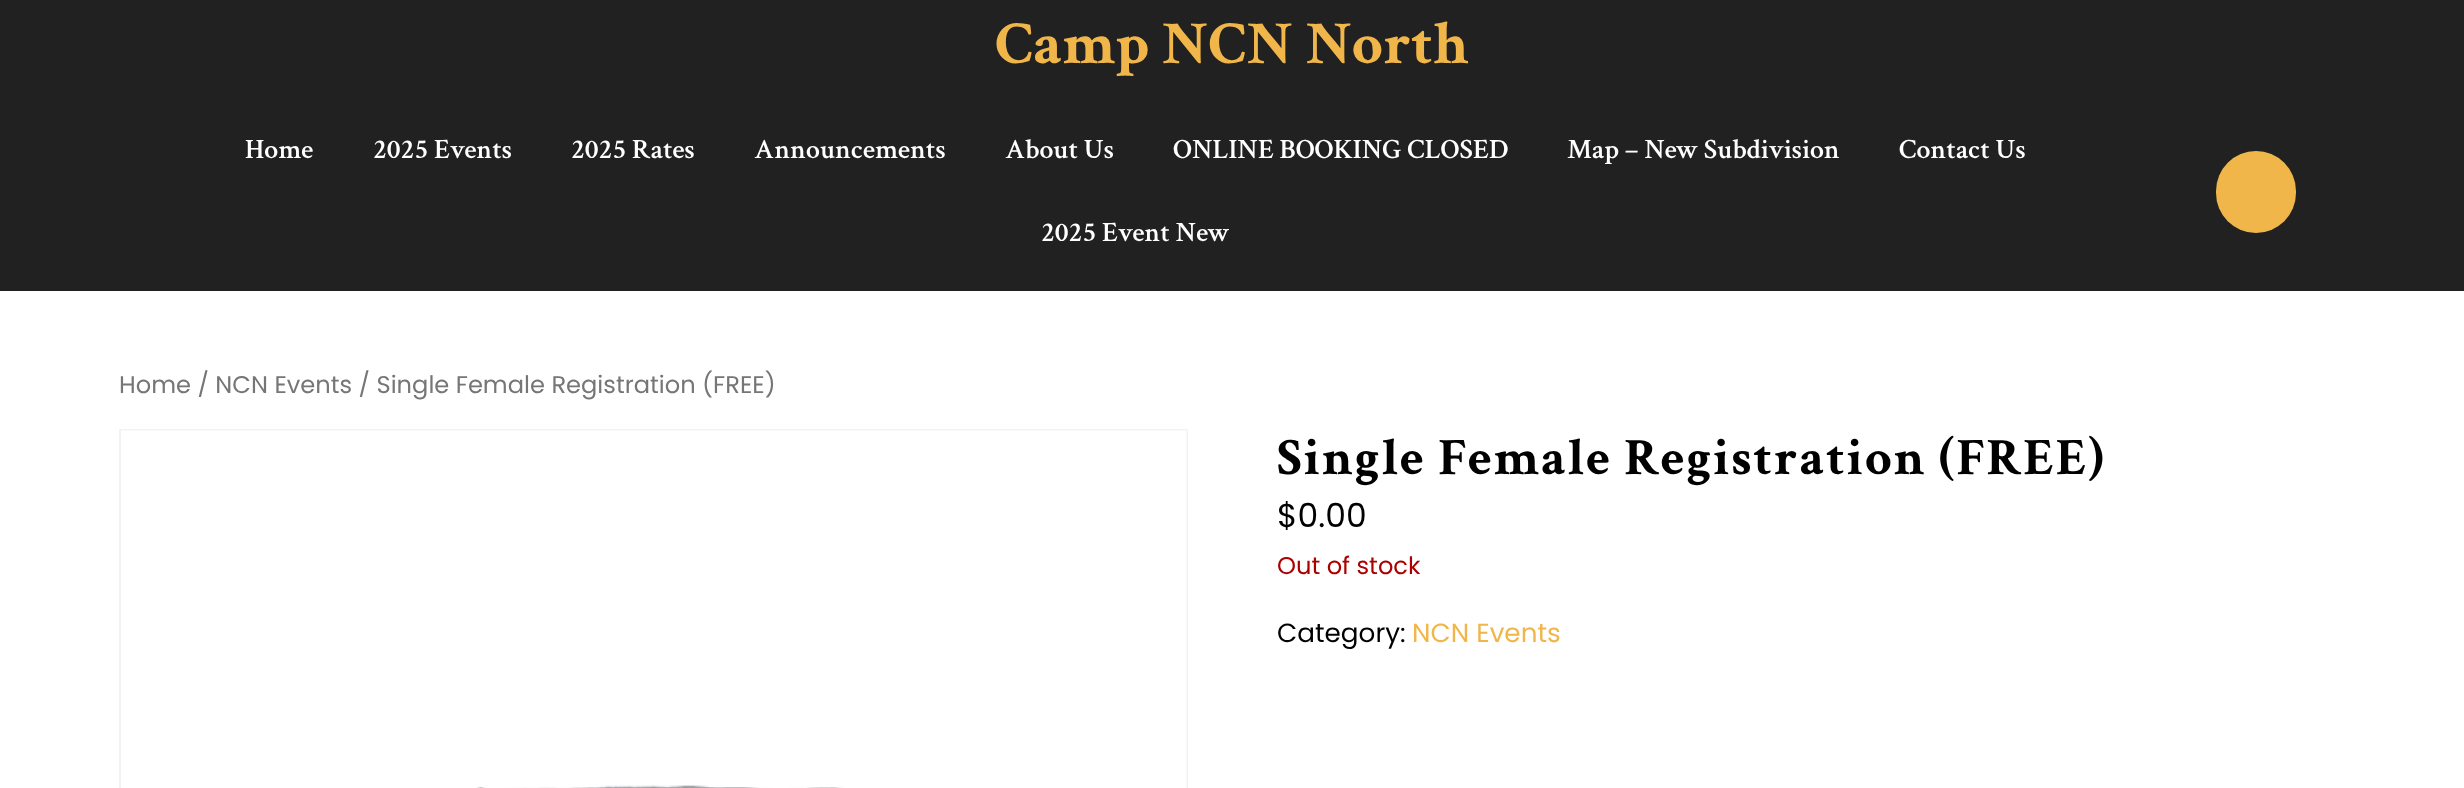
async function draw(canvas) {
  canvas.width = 2464
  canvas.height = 788
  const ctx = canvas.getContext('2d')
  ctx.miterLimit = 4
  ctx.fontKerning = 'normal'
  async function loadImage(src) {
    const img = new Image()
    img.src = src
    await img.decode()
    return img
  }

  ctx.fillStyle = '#fff'
  ctx.fillRect(0, 0, 2464, 788)
  ctx.fillStyle = '#212121'
  ctx.fillRect(0, 0, 2464, 291)
  ctx.font = 'bold 61.25px Crimson Text'
  ctx.fillStyle = '#f1b64a'
  ctx.fillText('Camp NCN North', 995, 63)
  ctx.font = '600 28px Crimson Text'
  ctx.fillStyle = '#fff'
  ctx.fillText('Home', 245, 158)
  ctx.fillText('2025 Events', 373, 158)
  ctx.fillText('2025 Rates', 571, 158)
  ctx.fillText('Announcements', 754, 158)
  ctx.fillText('About Us', 1005, 158)
  ctx.fillText('ONLINE BOOKING CLOSED', 1173, 158)
  ctx.fillText('Map – New Subdivision', 1567, 158)
  ctx.fillText('Contact Us', 1899, 158)
  ctx.fillText('2025 Event New', 1041, 241)
  ctx.fillStyle = '#f1b64a'
  ctx.beginPath()
  ctx.roundRect(2216, 151, 80, 82, 40)
  ctx.fill()
  ctx.font = '24.15px Poppins'
  ctx.fillStyle = '#767676'
  ctx.fillText('Home / NCN Events / Single Female Registration (FREE)', 119, 393)
  ctx.strokeStyle = '#f2f2f2'
  ctx.lineWidth = 2
  ctx.strokeRect(120, 430, 1067, 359)
  ctx.drawImage(await loadImage('image0.png'), 121, 430, 1066, 358)
  ctx.letterSpacing = '1.75px'
  ctx.font = 'bold 52.5px Crimson Text'
  ctx.fillStyle = '#000'
  ctx.fillText('Single Female Registration (FREE)', 1277, 474)
  ctx.letterSpacing = '0px'
  ctx.font = '33px Poppins'
  ctx.fillText('$0.00', 1277, 527)
  ctx.font = '24.15px Poppins'
  ctx.fillStyle = '#a00'
  ctx.fillText('Out of stock', 1277, 574)
  ctx.font = '26.25px Poppins'
  ctx.fillStyle = '#000'
  ctx.fillText('Category:', 1277, 642)
  ctx.fillStyle = '#f1b64a'
  ctx.fillText('NCN Events', 1412, 642)
}

draw(document.querySelector('canvas'))
